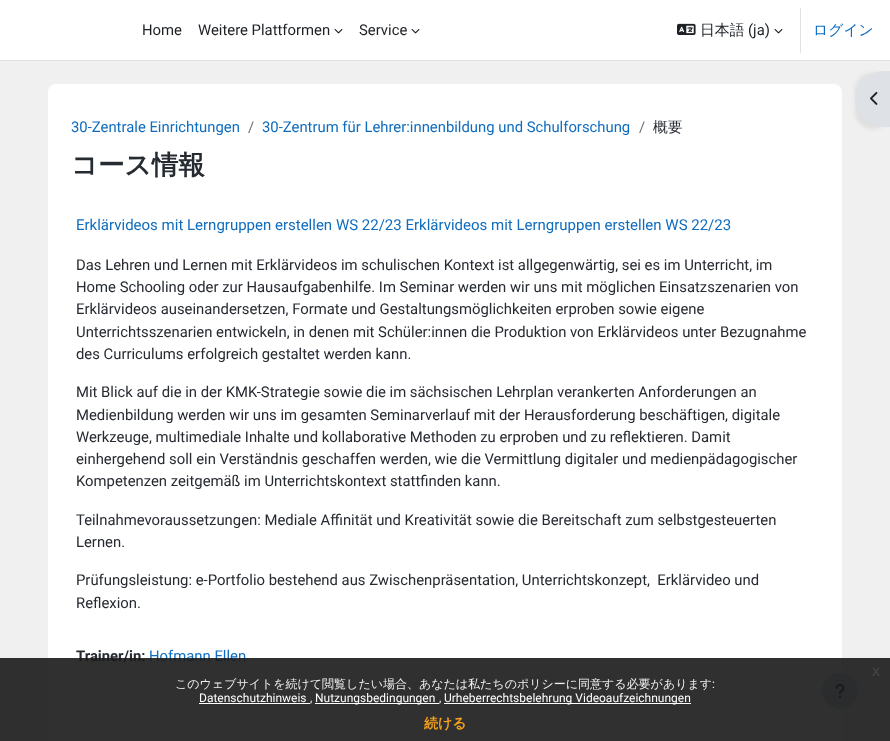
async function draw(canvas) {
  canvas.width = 890
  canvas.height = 741
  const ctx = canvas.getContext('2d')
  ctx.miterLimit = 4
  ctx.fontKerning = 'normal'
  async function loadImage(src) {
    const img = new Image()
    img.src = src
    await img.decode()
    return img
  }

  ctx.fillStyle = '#f0f0f0'
  ctx.fillRect(0, 0, 890, 741)
  ctx.fillStyle = '#fff'
  ctx.fillRect(0, 0, 890, 60)
  ctx.fillStyle = '#dee2e6'
  ctx.fillRect(0, 60, 890, 1)
  ctx.font = '14.85px Roboto'
  ctx.fillStyle = '#1d2125'
  ctx.fillText('Home', 142, 35)
  ctx.fillText('Weitere Plattformen', 198, 35)
  ctx.drawImage(await loadImage('image0.png'), 334, 29, 9, 5)
  ctx.fillText('Service', 359, 35)
  ctx.drawImage(await loadImage('image0.png'), 411, 29, 9, 5)
  ctx.drawImage(await loadImage('image1.png'), 677, 23, 19, 12)
  ctx.font = '500 14.85px WenQuanYi Zen Hei'
  ctx.fillText('日本語', 700, 35)
  ctx.font = '14.85px Roboto'
  ctx.fillText('(ja)', 748, 35)
  ctx.drawImage(await loadImage('image0.png'), 774, 29, 9, 5)
  ctx.fillStyle = '#dee2e6'
  ctx.fillRect(800, 8, 1, 45)
  ctx.font = '500 14.85px WenQuanYi Zen Hei'
  ctx.fillStyle = '#0f6cbf'
  ctx.fillText('ログイン', 813, 35)
  ctx.fillStyle = '#fff'
  ctx.beginPath()
  ctx.roundRect(48, 84, 794, 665, 8)
  ctx.fill()
  ctx.fillStyle = '#00000012'
  ctx.filter = 'blur(2px)'
  ctx.beginPath()
  ctx.roundRect(855, 73, 35, 56, 28)
  ctx.fill()
  ctx.filter = 'none'
  ctx.fillStyle = '#dee2e6'
  ctx.beginPath()
  ctx.roundRect(855, 71, 35, 56, [28, 0, 0, 28])
  ctx.fill()
  ctx.drawImage(await loadImage('image2.png'), 870, 92, 8, 13)
  ctx.font = '14.85px Roboto'
  ctx.fillStyle = '#0f6cbf'
  ctx.fillText('30-Zentrale Einrichtungen', 71, 132)
  ctx.fillStyle = '#6a737b'
  ctx.fillText('/', 248, 132)
  ctx.fillStyle = '#0f6cbf'
  ctx.fillText('30-Zentrum für Lehrer:innenbildung und Schulforschung', 262, 132)
  ctx.fillStyle = '#6a737b'
  ctx.fillText('/', 639, 132)
  ctx.font = '500 14.85px WenQuanYi Zen Hei'
  ctx.fillStyle = '#262a31'
  ctx.fillText('概要', 653, 132)
  ctx.font = 'bold 26.5px WenQuanYi Zen Hei'
  ctx.fillText('コース情報', 71, 174)
  ctx.font = '15px Roboto'
  ctx.fillStyle = '#0f6cbf'
  ctx.fillText('Erklärvideos mit Lerngruppen erstellen WS 22/23 Erklärvideos mit Lerngruppen erstellen WS 22/23', 76, 230)
  ctx.font = '14.85px Roboto'
  ctx.fillStyle = '#262a31'
  ctx.fillText('Das Lehren und Lernen mit Erklärvideos im schulischen Kontext ist allgegenwärtig, sei es im Unterricht, im', 76, 270)
  ctx.fillText('Home Schooling oder zur Hausaufgabenhilfe. Im Seminar werden wir uns mit möglichen Einsatzszenarien von', 76, 292)
  ctx.fillText('Erklärvideos auseinandersetzen, Formate und Gestaltungsmöglichkeiten erproben sowie eigene', 76, 314)
  ctx.fillText('Unterrichtsszenarien entwickeln, in denen mit Schüler:innen die Produktion von Erklärvideos unter Bezugnahme', 76, 337)
  ctx.fillText('des Curriculums erfolgreich gestaltet werden kann.', 76, 359)
  ctx.fillText('Mit Blick auf die in der KMK-Strategie sowie die im sächsischen Lehrplan verankerten Anforderungen an', 76, 397)
  ctx.fillText('Medienbildung werden wir uns im gesamten Seminarverlauf mit der Herausforderung beschäftigen, digitale', 76, 420)
  ctx.fillText('Werkzeuge, multimediale Inhalte und kollaborative Methoden zu erproben und zu reflektieren. Damit', 76, 442)
  ctx.fillText('einhergehend soll ein Verständnis geschaffen werden, wie die Vermittlung digitaler und medienpädagogischer', 76, 464)
  ctx.fillText('Kompetenzen zeitgemäß im Unterrichtskontext stattfinden kann.', 76, 486)
  ctx.fillText('Teilnahmevoraussetzungen: Mediale Affinität und Kreativität sowie die Bereitschaft zum selbstgesteuerten', 76, 525)
  ctx.fillText('Lernen.', 76, 547)
  ctx.fillText('Prüfungsleistung: e-Portfolio bestehend aus Zwischenpräsentation, Unterrichtskonzept,  Erklärvideo und', 76, 585)
  ctx.fillText('Reflexion.', 76, 608)
  ctx.font = 'bold 14.85px Roboto'
  ctx.fillText('Trainer/in:', 76, 661)
  ctx.font = '14.85px Roboto'
  ctx.fillStyle = '#0f6cbf'
  ctx.fillText('Hofmann Ellen', 149, 661)
  ctx.fillStyle = '#ced4da'
  ctx.beginPath()
  ctx.arc(840, 691, 18, 0, 2 * Math.PI)
  ctx.fill()
  ctx.drawImage(await loadImage('image3.png'), 835, 684, 10, 14)
  ctx.fillStyle = '#191919e6'
  ctx.fillRect(0, 658, 890, 83)
  ctx.font = '16px Liberation Sans'
  ctx.fillStyle = '#464646'
  ctx.fillText('x', 872, 676)
  ctx.font = '500 12px WenQuanYi Zen Hei'
  ctx.fillStyle = '#efefef'
  ctx.fillText('このウェブサイトを続けて閲覧したい場合、あなたは私たちのポリシーに同意する必要があります', 175, 688)
  ctx.font = '12px Roboto'
  ctx.fillText(':', 712, 688)
  ctx.fillStyle = '#fff'
  ctx.fillText('Datenschutzhinweis', 199, 702)
  ctx.fillRect(199, 703, 111, 1)
  ctx.fillStyle = '#efefef'
  ctx.fillText(',', 310, 702)
  ctx.fillStyle = '#fff'
  ctx.fillRect(315, 703, 124, 1)
  ctx.fillText('Nutzungsbedingungen', 315, 702)
  ctx.fillStyle = '#efefef'
  ctx.fillText(',', 439, 702)
  ctx.fillStyle = '#fff'
  ctx.fillRect(444, 703, 247, 1)
  ctx.fillText('Urheberrechtsbelehrung Videoaufzeichnungen', 444, 702)
  ctx.font = 'bold 14px WenQuanYi Zen Hei'
  ctx.fillStyle = '#f6a21d'
  ctx.fillText('続ける', 424, 728)
}

draw(document.querySelector('canvas'))
